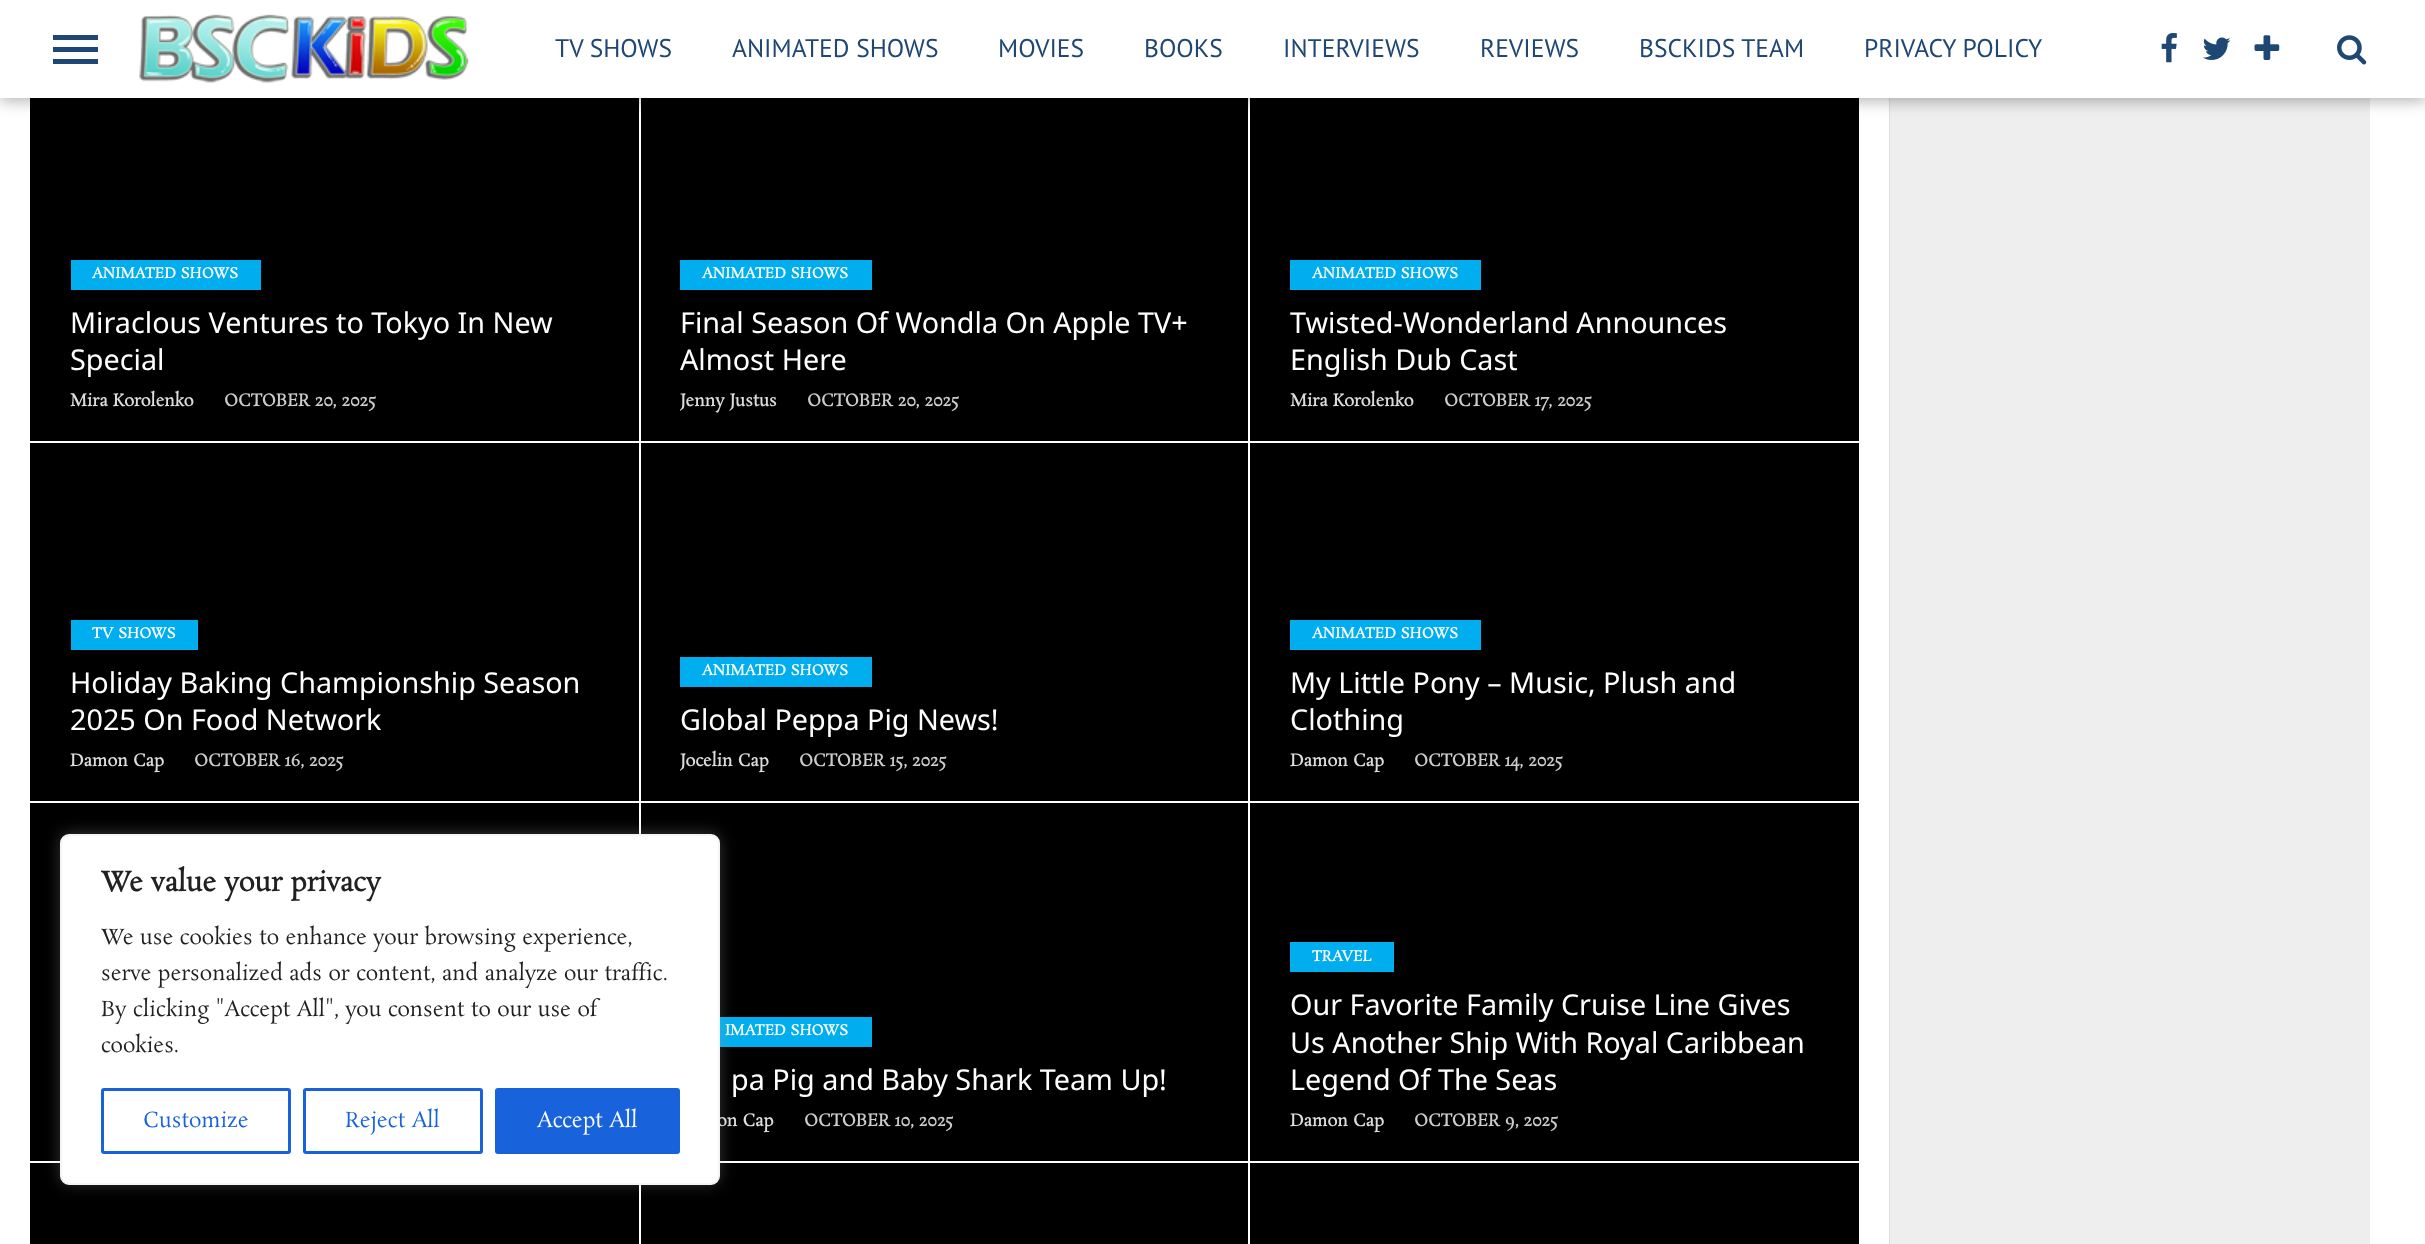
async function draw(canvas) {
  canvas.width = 2425
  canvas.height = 1244
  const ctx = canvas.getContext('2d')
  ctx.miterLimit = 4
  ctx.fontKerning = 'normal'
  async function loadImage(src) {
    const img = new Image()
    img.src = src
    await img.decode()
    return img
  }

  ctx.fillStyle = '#fff'
  ctx.fillRect(0, 0, 2425, 1244)
  ctx.fillStyle = '#000'
  ctx.fillRect(30, 98, 609, 343)
  ctx.fillRect(641, 98, 607, 343)
  ctx.fillRect(1250, 98, 609, 343)
  ctx.fillStyle = '#ddd'
  ctx.fillRect(1889, 98, 1, 1146)
  ctx.fillStyle = '#eee'
  ctx.fillRect(1890, 98, 480, 1146)
  ctx.fillStyle = '#0000004d'
  ctx.filter = 'blur(7.5px)'
  ctx.beginPath()
  ctx.rect(0, 3, 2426, 98)
  ctx.fill()
  ctx.filter = 'none'
  ctx.fillStyle = '#fff'
  ctx.fillRect(0, 0, 2425, 98)
  ctx.fillStyle = '#1f4773'
  ctx.fillRect(53, 35, 45, 5)
  ctx.fillRect(53, 47, 45, 5)
  ctx.fillRect(53, 59, 45, 5)
  ctx.drawImage(await loadImage('image0.png'), 139, 14, 330, 69)
  ctx.font = '25.5px PT Sans'
  ctx.fillText('TV SHOWS', 555, 57)
  ctx.fillText('ANIMATED SHOWS', 732, 57)
  ctx.fillText('MOVIES', 998, 57)
  ctx.fillText('BOOKS', 1144, 57)
  ctx.fillText('INTERVIEWS', 1283, 57)
  ctx.fillText('REVIEWS', 1480, 57)
  ctx.fillText('BSCKIDS TEAM', 1639, 57)
  ctx.fillText('PRIVACY POLICY', 1864, 57)
  ctx.drawImage(await loadImage('image1.png'), 2161, 33, 16, 30)
  ctx.drawImage(await loadImage('image2.png'), 2203, 37, 28, 23)
  ctx.drawImage(await loadImage('image3.png'), 2254, 35, 26, 25)
  ctx.drawImage(await loadImage('image4.png'), 2337, 35, 30, 30)
  ctx.fillStyle = '#00aeef'
  ctx.fillRect(71, 260, 190, 30)
  ctx.font = 'bold 14.4px Rosarivo'
  ctx.fillStyle = '#fff'
  ctx.fillText('ANIMATED SHOWS', 92, 278)
  ctx.font = '28.75px Noto Sans'
  ctx.fillText('Miraclous Ventures to Tokyo In New', 70, 333)
  ctx.fillText('Special', 70, 370)
  ctx.font = 'bold 16.75px Rosarivo'
  ctx.fillStyle = '#ddd'
  ctx.fillText('Mira Korolenko', 70, 406)
  ctx.fillStyle = '#ccc'
  ctx.fillText('OCTOBER 20, 2025', 224, 406)
  ctx.fillStyle = '#00aeef'
  ctx.fillRect(680, 260, 192, 30)
  ctx.font = 'bold 14.4px Rosarivo'
  ctx.fillStyle = '#fff'
  ctx.fillText('ANIMATED SHOWS', 702, 278)
  ctx.font = '28.75px Noto Sans'
  ctx.fillText('Final Season Of Wondla On Apple TV+', 680, 333)
  ctx.fillText('Almost Here', 680, 370)
  ctx.font = 'bold 16.75px Rosarivo'
  ctx.fillStyle = '#ddd'
  ctx.fillText('Jenny Justus', 680, 406)
  ctx.fillStyle = '#ccc'
  ctx.fillText('OCTOBER 20, 2025', 807, 406)
  ctx.fillStyle = '#00aeef'
  ctx.fillRect(1290, 260, 191, 30)
  ctx.font = 'bold 14.4px Rosarivo'
  ctx.fillStyle = '#fff'
  ctx.fillText('ANIMATED SHOWS', 1312, 278)
  ctx.font = '28.75px Noto Sans'
  ctx.fillText('Twisted-Wonderland Announces', 1290, 333)
  ctx.fillText('English Dub Cast', 1290, 370)
  ctx.font = 'bold 16.75px Rosarivo'
  ctx.fillStyle = '#ddd'
  ctx.fillText('Mira Korolenko', 1290, 406)
  ctx.fillStyle = '#ccc'
  ctx.fillText('OCTOBER 17, 2025', 1444, 406)
  ctx.fillStyle = '#000'
  ctx.fillRect(30, 443, 609, 358)
  ctx.fillStyle = '#00aeef'
  ctx.fillRect(71, 620, 127, 30)
  ctx.font = 'bold 14.4px Rosarivo'
  ctx.fillStyle = '#fff'
  ctx.fillText('TV SHOWS', 92, 638)
  ctx.font = '28.75px Noto Sans'
  ctx.fillText('Holiday Baking Championship Season', 70, 693)
  ctx.fillText('2025 On Food Network', 70, 730)
  ctx.font = 'bold 16.75px Rosarivo'
  ctx.fillStyle = '#ddd'
  ctx.fillText('Damon Cap', 70, 766)
  ctx.fillStyle = '#ccc'
  ctx.fillText('OCTOBER 16, 2025', 194, 766)
  ctx.fillStyle = '#000'
  ctx.fillRect(641, 443, 607, 358)
  ctx.fillStyle = '#00aeef'
  ctx.fillRect(680, 657, 192, 30)
  ctx.font = 'bold 14.4px Rosarivo'
  ctx.fillStyle = '#fff'
  ctx.fillText('ANIMATED SHOWS', 702, 675)
  ctx.font = '28.75px Noto Sans'
  ctx.fillText('Global Peppa Pig News!', 680, 730)
  ctx.font = 'bold 16.75px Rosarivo'
  ctx.fillStyle = '#ddd'
  ctx.fillText('Jocelin Cap', 680, 766)
  ctx.fillStyle = '#ccc'
  ctx.fillText('OCTOBER 15, 2025', 799, 766)
  ctx.fillStyle = '#000'
  ctx.fillRect(1250, 443, 609, 358)
  ctx.fillStyle = '#00aeef'
  ctx.fillRect(1290, 620, 191, 30)
  ctx.font = 'bold 14.4px Rosarivo'
  ctx.fillStyle = '#fff'
  ctx.fillText('ANIMATED SHOWS', 1312, 638)
  ctx.font = '28.75px Noto Sans'
  ctx.fillText('My Little Pony – Music, Plush and', 1290, 693)
  ctx.fillText('Clothing', 1290, 730)
  ctx.font = 'bold 16.75px Rosarivo'
  ctx.fillStyle = '#ddd'
  ctx.fillText('Damon Cap', 1290, 766)
  ctx.fillStyle = '#ccc'
  ctx.fillText('OCTOBER 14, 2025', 1414, 766)
  ctx.fillStyle = '#000'
  ctx.fillRect(30, 803, 609, 358)
  ctx.fillRect(641, 803, 607, 358)
  ctx.fillStyle = '#00aeef'
  ctx.fillRect(720, 1017, 152, 30)
  ctx.font = 'bold 14.4px Rosarivo'
  ctx.fillStyle = '#fff'
  ctx.fillText('IMATED SHOWS', 725, 1035)
  ctx.font = '28.75px Noto Sans'
  ctx.fillText('pa Pig and Baby Shark Team Up!', 731, 1090)
  ctx.font = 'bold 16.75px Rosarivo'
  ctx.fillStyle = '#ddd'
  ctx.fillText('on Cap', 717, 1126)
  ctx.fillStyle = '#ccc'
  ctx.fillText('OCTOBER 10, 2025', 804, 1126)
  ctx.fillStyle = '#000'
  ctx.fillRect(1250, 803, 609, 358)
  ctx.fillStyle = '#00aeef'
  ctx.fillRect(1290, 942, 104, 30)
  ctx.font = 'bold 14.4px Rosarivo'
  ctx.fillStyle = '#fff'
  ctx.fillText('TRAVEL', 1312, 961)
  ctx.font = '28.75px Noto Sans'
  ctx.fillText('Our Favorite Family Cruise Line Gives', 1290, 1015)
  ctx.fillText('Us Another Ship With Royal Caribbean', 1290, 1053)
  ctx.fillText('Legend Of The Seas', 1290, 1090)
  ctx.font = 'bold 16.75px Rosarivo'
  ctx.fillStyle = '#ddd'
  ctx.fillText('Damon Cap', 1290, 1126)
  ctx.fillStyle = '#ccc'
  ctx.fillText('OCTOBER 9, 2025', 1414, 1126)
  ctx.fillStyle = '#000'
  ctx.fillRect(30, 1163, 609, 81)
  ctx.fillRect(641, 1163, 607, 81)
  ctx.fillRect(1250, 1163, 609, 81)
  ctx.fillStyle = '#acabab4d'
  ctx.filter = 'blur(7.5px)'
  ctx.beginPath()
  ctx.roundRect(60, 833, 660, 351, 9)
  ctx.fill()
  ctx.filter = 'none'
  ctx.fillStyle = '#fff'
  ctx.beginPath()
  ctx.roundRect(61, 835, 658, 349, 8)
  ctx.fill()
  ctx.strokeStyle = '#f4f4f4'
  ctx.lineWidth = 2
  ctx.stroke()
  ctx.font = 'bold 27px Rosarivo'
  ctx.fillStyle = '#212121'
  ctx.fillText('We value your privacy', 101, 891)
  ctx.font = '21px Rosarivo'
  ctx.fillText('We use cookies to enhance your browsing experience,', 101, 944)
  ctx.fillText('serve personalized ads or content, and analyze our traffic.', 101, 980)
  ctx.fillText('By clicking "Accept All", you consent to our use of', 101, 1016)
  ctx.fillText('cookies.', 101, 1052)
  ctx.beginPath()
  ctx.roundRect(102.5, 1089.5, 187, 63, 1.5)
  ctx.strokeStyle = '#1863dc'
  ctx.lineWidth = 3
  ctx.stroke()
  ctx.fillStyle = '#1863dc'
  ctx.fillText('Customize', 143, 1127)
  ctx.beginPath()
  ctx.roundRect(304.5, 1089.5, 177, 63, 1.5)
  ctx.stroke()
  ctx.fillText('Reject All', 345, 1127)
  ctx.beginPath()
  ctx.roundRect(496.5, 1089.5, 182, 63, 1.5)
  ctx.fill()
  ctx.stroke()
  ctx.fillStyle = '#fff'
  ctx.fillText('Accept All', 537, 1127)
}

draw(document.querySelector('canvas'))
